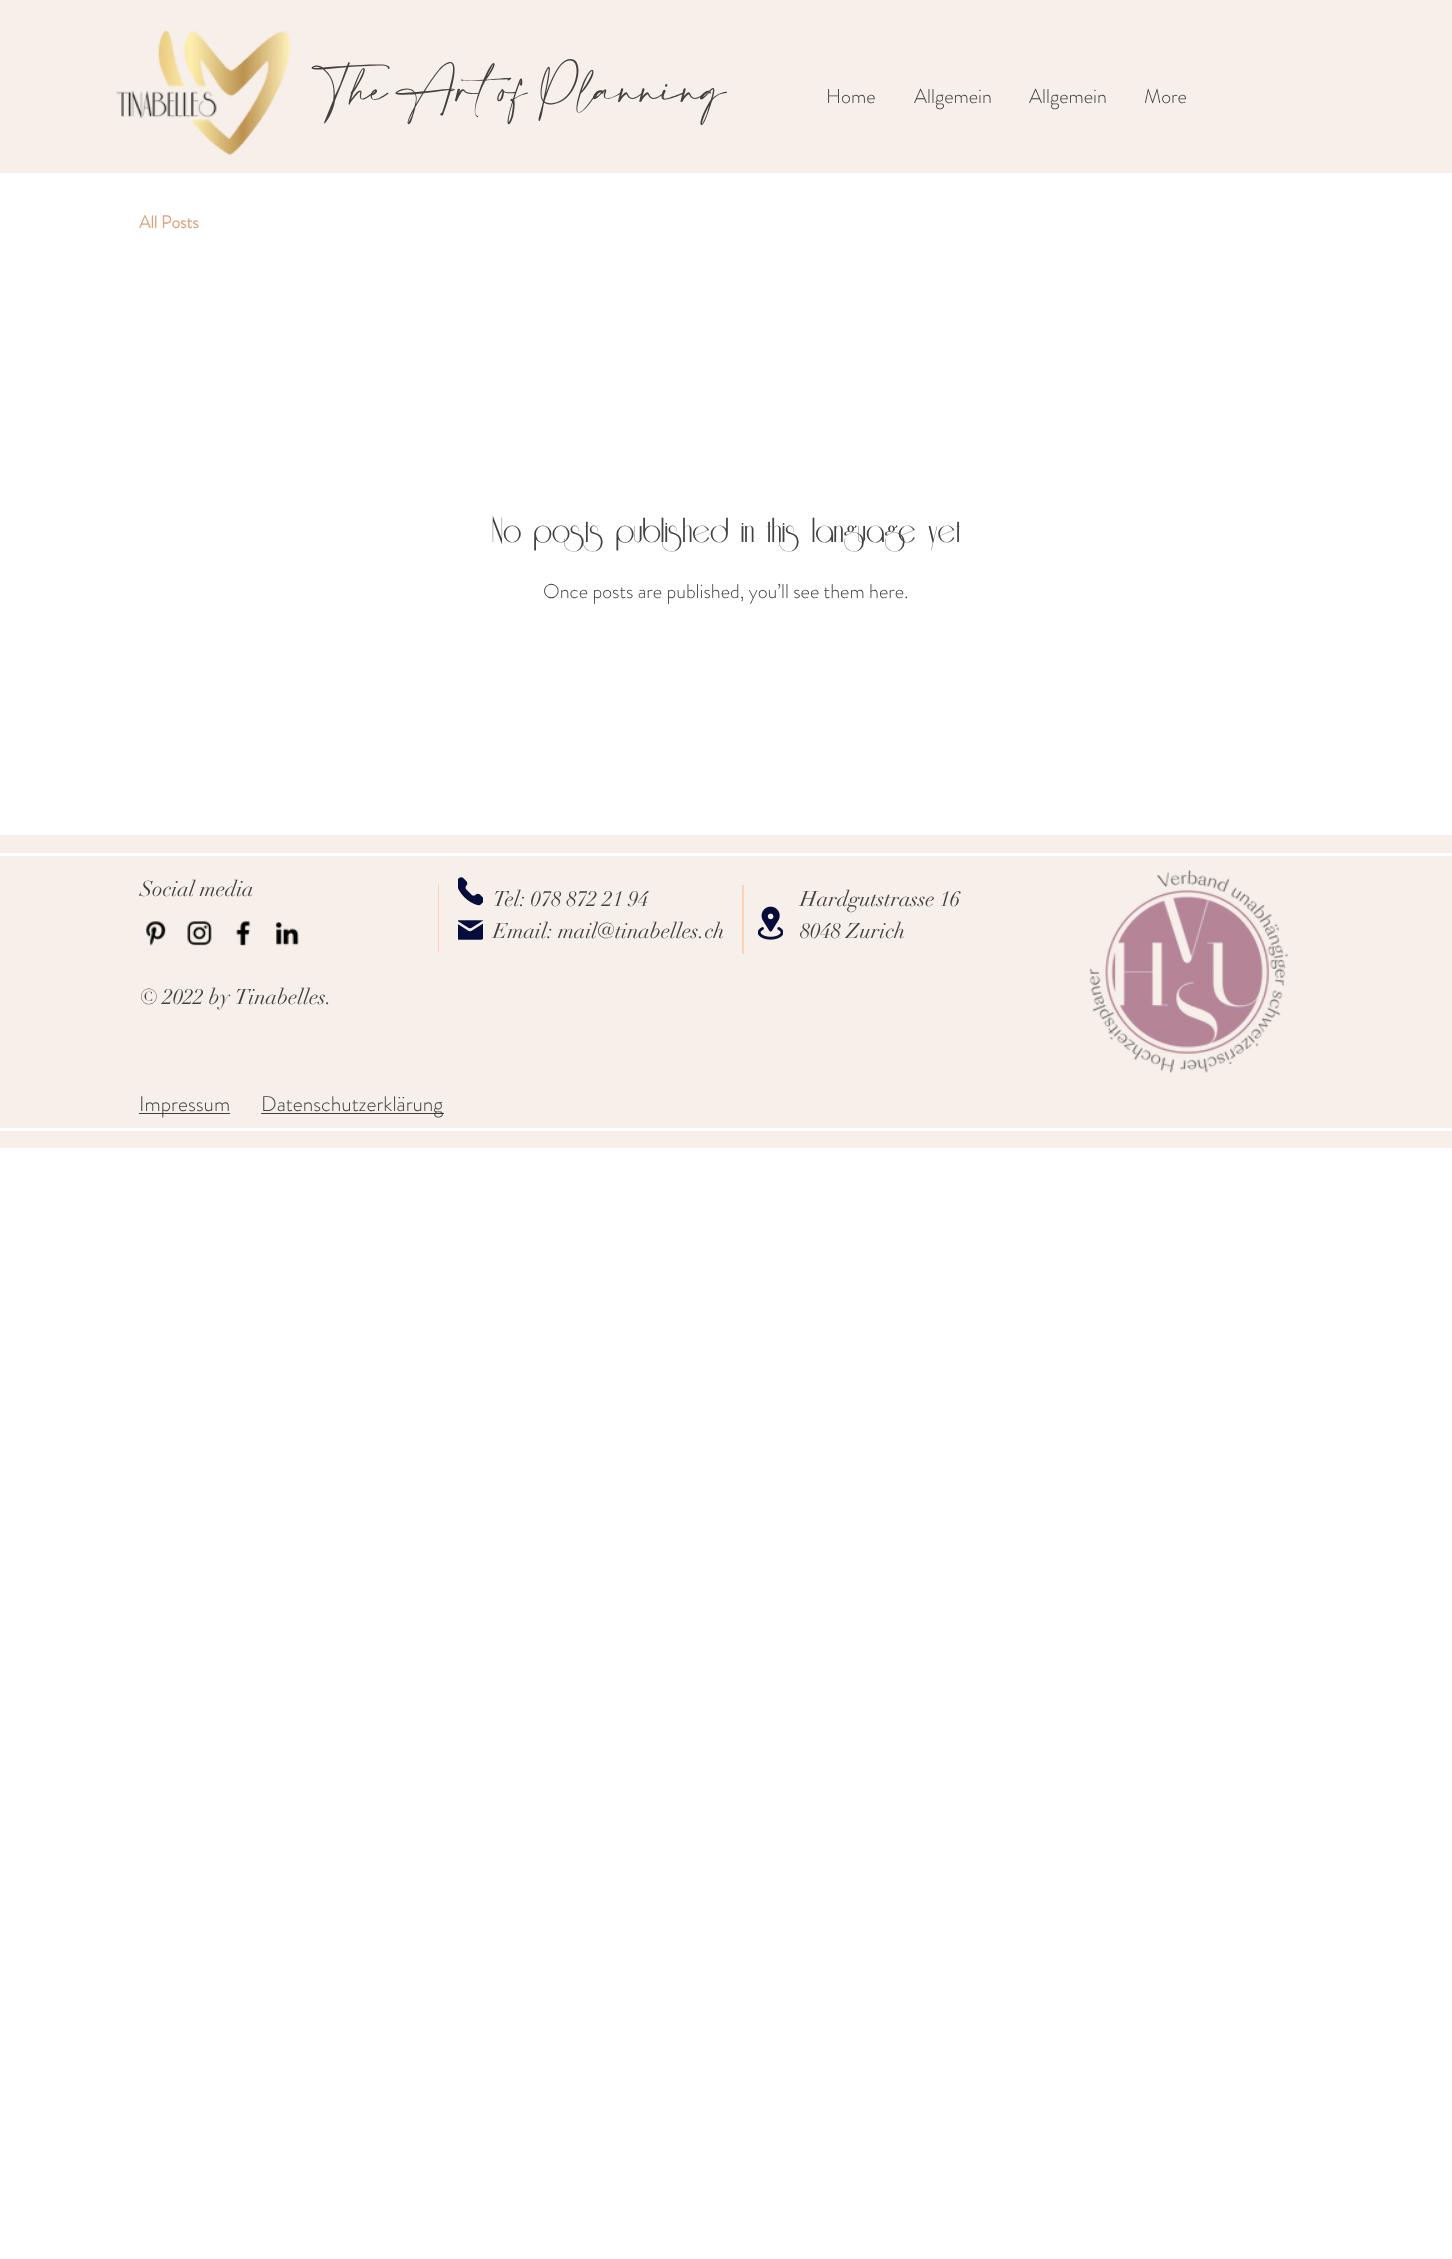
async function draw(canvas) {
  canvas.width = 1452
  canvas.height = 2259
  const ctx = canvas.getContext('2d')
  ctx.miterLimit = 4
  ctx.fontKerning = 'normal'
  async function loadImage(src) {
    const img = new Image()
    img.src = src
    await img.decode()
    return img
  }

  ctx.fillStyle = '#fff'
  ctx.fillRect(0, 0, 1452, 2259)
  ctx.fillStyle = '#f7efe9'
  ctx.fillRect(0, 0, 1452, 173)
  ctx.drawImage(await loadImage('image0.png'), 116, 30, 175, 126)
  ctx.font = '31.25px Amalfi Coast'
  ctx.fillStyle = '#414141'
  ctx.fillText('The Art of Planning', 323, 101)
  ctx.font = '300 20px "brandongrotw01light"'
  ctx.fillText('Home', 826, 103)
  ctx.fillText('Allgemein', 914, 103)
  ctx.fillText('Allgemein', 1029, 103)
  ctx.fillText('More', 1144, 103)
  ctx.font = 'bold 17.5px "brandongrotw01light"'
  ctx.fillStyle = '#dea27a'
  ctx.fillText('All Posts', 139, 228)
  ctx.font = '40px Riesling'
  ctx.fillStyle = '#414141'
  ctx.fillText('No posts published in this language yet', 492, 542)
  ctx.font = '300 20px "brandongrotw01light"'
  ctx.fillText('Once posts are published, you’ll see them here.', 543, 598)
  ctx.fillStyle = '#f7efe9'
  ctx.fillRect(0, 835, 1452, 313)
  ctx.fillStyle = '#fff'
  ctx.fillRect(0, 853, 1452, 3)
  ctx.fillRect(0, 1128, 1452, 3)
  ctx.font = '21.25px didot'
  ctx.fillStyle = '#414141'
  ctx.fillText('Social media', 140, 896)
  ctx.fillStyle = '#ffd2b3'
  ctx.fillRect(438, 884, 1, 68)
  ctx.drawImage(await loadImage('image1.png'), 458, 877, 25, 29)
  ctx.fillStyle = '#414141'
  ctx.fillText('Tel: 078 872 21 94', 493, 906)
  ctx.fillText('Email: mail@tinabelles.ch', 493, 938)
  ctx.fillStyle = '#ffd2b3'
  ctx.fillRect(742, 885, 2, 69)
  ctx.drawImage(await loadImage('image2.png'), 758, 906, 25, 34)
  ctx.fillStyle = '#414141'
  ctx.fillText('Hardgutstrasse 16', 800, 906)
  ctx.fillText('8048 Zurich', 800, 938)
  ctx.drawImage(await loadImage('image3.png'), 1089, 870, 199, 203)
  ctx.drawImage(await loadImage('image4.png'), 146, 921, 20, 25)
  ctx.drawImage(await loadImage('image5.png'), 187, 921, 25, 25)
  ctx.drawImage(await loadImage('image6.png'), 236, 921, 15, 25)
  ctx.drawImage(await loadImage('image7.png'), 275, 922, 24, 24)
  ctx.drawImage(await loadImage('image8.png'), 458, 920, 25, 20)
  ctx.fillText('© 2022 by Tinabelles.', 140, 1004)
  ctx.fillRect(139, 1113, 91, 1)
  ctx.font = '300 21.25px "brandongrotw01light"'
  ctx.fillText('Impressum', 139, 1111)
  ctx.fillRect(261, 1113, 183, 1)
  ctx.fillText('Datenschutzerklärung', 261, 1111)
}

draw(document.querySelector('canvas'))
